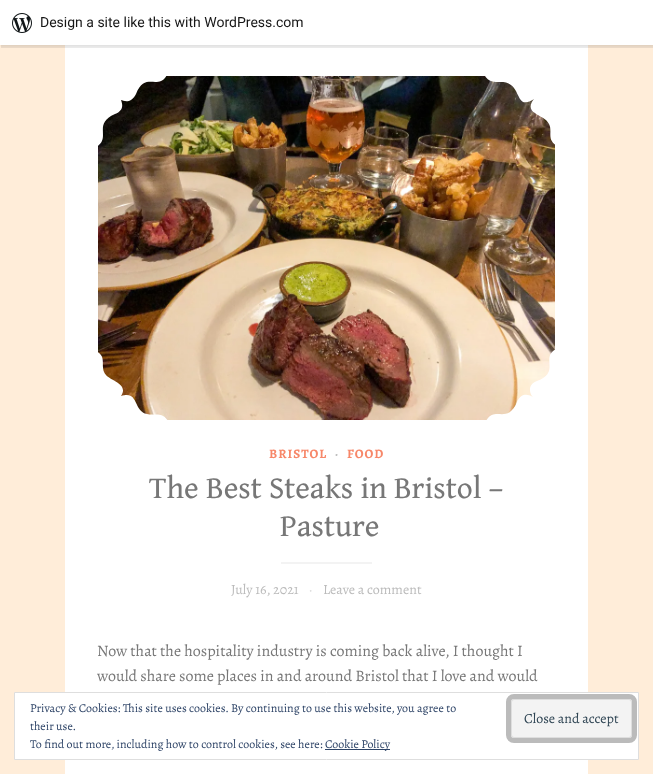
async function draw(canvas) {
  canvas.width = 653
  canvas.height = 774
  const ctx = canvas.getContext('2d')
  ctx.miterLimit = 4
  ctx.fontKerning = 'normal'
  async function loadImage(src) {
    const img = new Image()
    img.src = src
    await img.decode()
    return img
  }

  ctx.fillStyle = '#ffedd9'
  ctx.fillRect(0, 0, 653, 774)
  ctx.fillStyle = '#fff'
  ctx.fillRect(65, 45, 523, 729)
  ctx.fillStyle = '#0000000d'
  ctx.filter = 'blur(1px)'
  ctx.beginPath()
  ctx.rect(0, 1, 653, 45)
  ctx.fill()
  ctx.filter = 'none'
  ctx.fillStyle = '#00000014'
  ctx.beginPath()
  ctx.moveTo(1, 45)
  ctx.lineTo(1, 48)
  ctx.lineTo(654, 48)
  ctx.lineTo(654, 3)
  ctx.lineTo(653, 3)
  ctx.lineTo(653, 45)
  ctx.closePath()
  ctx.fill()
  ctx.fillStyle = '#fff'
  ctx.fillRect(0, 0, 653, 45)
  ctx.drawImage(await loadImage('image0.png'), 12, 13, 20, 20)
  ctx.font = '14px Roboto'
  ctx.fillStyle = '#171717'
  ctx.fillText('Design a site like this with WordPress.com', 40, 27)
  ctx.drawImage(await loadImage('image1.png'), 98, 76, 457, 344)
  ctx.save()
  ctx.beginPath()
  ctx.rect(97, 76, 459, 344)
  ctx.clip()
  ctx.fillStyle = '#fff'
  ctx.beginPath()
  ctx.moveTo(96, 421)
  ctx.lineTo(168, 421)
  ctx.bezierCurveTo(162, 411, 155, 416, 147, 414)
  ctx.bezierCurveTo(133, 411, 139, 390, 121, 396)
  ctx.bezierCurveTo(129, 384, 111, 381, 106, 375)
  ctx.bezierCurveTo(99, 367, 108, 357, 96, 351)
  ctx.closePath()
  ctx.fill()
  ctx.restore()
  ctx.save()
  ctx.beginPath()
  ctx.rect(482, 346, 74, 74)
  ctx.clip()
  ctx.fillStyle = '#fff'
  ctx.beginPath()
  ctx.moveTo(486, 421)
  ctx.bezierCurveTo(495, 405, 507, 425, 517, 402)
  ctx.bezierCurveTo(521, 392, 529, 395, 531, 396)
  ctx.lineTo(533, 397)
  ctx.lineTo(532, 396)
  ctx.bezierCurveTo(530, 393, 527, 385, 537, 381)
  ctx.bezierCurveTo(561, 372, 540, 358, 556, 349)
  ctx.lineTo(556, 421)
  ctx.fill()
  ctx.restore()
  ctx.save()
  ctx.beginPath()
  ctx.rect(97, 76, 74, 74)
  ctx.clip()
  ctx.fillStyle = '#fff'
  ctx.beginPath()
  ctx.moveTo(167, 75)
  ctx.bezierCurveTo(158, 91, 145, 71, 136, 94)
  ctx.bezierCurveTo(131, 104, 124, 101, 121, 100)
  ctx.lineTo(120, 98)
  ctx.lineTo(121, 100)
  ctx.bezierCurveTo(122, 103, 125, 110, 115, 114)
  ctx.bezierCurveTo(92, 124, 112, 138, 96, 147)
  ctx.lineTo(96, 75)
  ctx.fill()
  ctx.restore()
  ctx.save()
  ctx.beginPath()
  ctx.rect(97, 76, 459, 344)
  ctx.clip()
  ctx.fillStyle = '#fff'
  ctx.beginPath()
  ctx.moveTo(557, 76)
  ctx.lineTo(485, 76)
  ctx.bezierCurveTo(492, 87, 503, 78, 511, 85)
  ctx.bezierCurveTo(517, 89, 518, 99, 523, 102)
  ctx.bezierCurveTo(527, 103, 531, 101, 534, 99)
  ctx.bezierCurveTo(530, 103, 529, 110, 535, 113)
  ctx.bezierCurveTo(540, 117, 546, 118, 549, 124)
  ctx.bezierCurveTo(553, 132, 546, 139, 557, 146)
  ctx.closePath()
  ctx.fill()
  ctx.restore()
  ctx.letterSpacing = '1px'
  ctx.font = 'bold 13px Alegreya'
  ctx.fillStyle = '#f78769'
  ctx.fillText('BRISTOL', 269, 458)
  ctx.fillStyle = '#bbb'
  ctx.fillText('·', 335, 458)
  ctx.fillStyle = '#f78769'
  ctx.fillText('FOOD', 347, 458)
  ctx.letterSpacing = '0px'
  ctx.font = '31.25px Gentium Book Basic'
  ctx.fillStyle = '#777'
  ctx.fillText('The Best Steaks in Bristol –', 149, 498)
  ctx.fillText('Pasture', 280, 536)
  ctx.fillStyle = '#f3f3f3'
  ctx.fillRect(281, 562, 91, 2)
  ctx.font = '14px Alegreya'
  ctx.fillStyle = '#bbb'
  ctx.fillText('July 16, 2021', 231, 594)
  ctx.fillStyle = '#ddd'
  ctx.fillText('·', 309, 594)
  ctx.fillStyle = '#bbb'
  ctx.fillText('Leave a comment', 323, 594)
  ctx.font = '16px Alegreya'
  ctx.fillStyle = '#777'
  ctx.fillText('Now that the hospitality industry is coming back alive, I thought I', 97, 656)
  ctx.fillText('would share some places in and around Bristol that I love and would', 97, 681)
  ctx.fillStyle = '#fff'
  ctx.beginPath()
  ctx.rect(14.5, 692.5, 624, 67)
  ctx.fill()
  ctx.strokeStyle = '#dedede'
  ctx.stroke()
  ctx.font = '12px Alegreya'
  ctx.fillStyle = '#2e4467'
  ctx.fillText('Privacy & Cookies: This site uses cookies. By continuing to use this website, you agree to', 30, 712)
  ctx.fillText('their use.', 30, 730)
  ctx.fillStyle = '#f3f3f3'
  ctx.beginPath()
  ctx.roundRect(511.5, 699.5, 120, 38, 2.5)
  ctx.fill()
  ctx.stroke()
  ctx.beginPath()
  ctx.roundRect(508.5, 696.5, 126, 44, 5.5)
  ctx.strokeStyle = '#bbb'
  ctx.lineWidth = 5
  ctx.stroke()
  ctx.font = '14px Alegreya'
  ctx.fillStyle = '#2e4453'
  ctx.fillText('Close and accept', 524, 723)
  ctx.font = '12px Alegreya'
  ctx.fillStyle = '#2e4467'
  ctx.fillText('To find out more, including how to control cookies, see here:', 30, 748)
  ctx.fillRect(325, 749, 65, 1)
  ctx.fillText('Cookie Policy', 325, 748)
}

draw(document.querySelector('canvas'))
